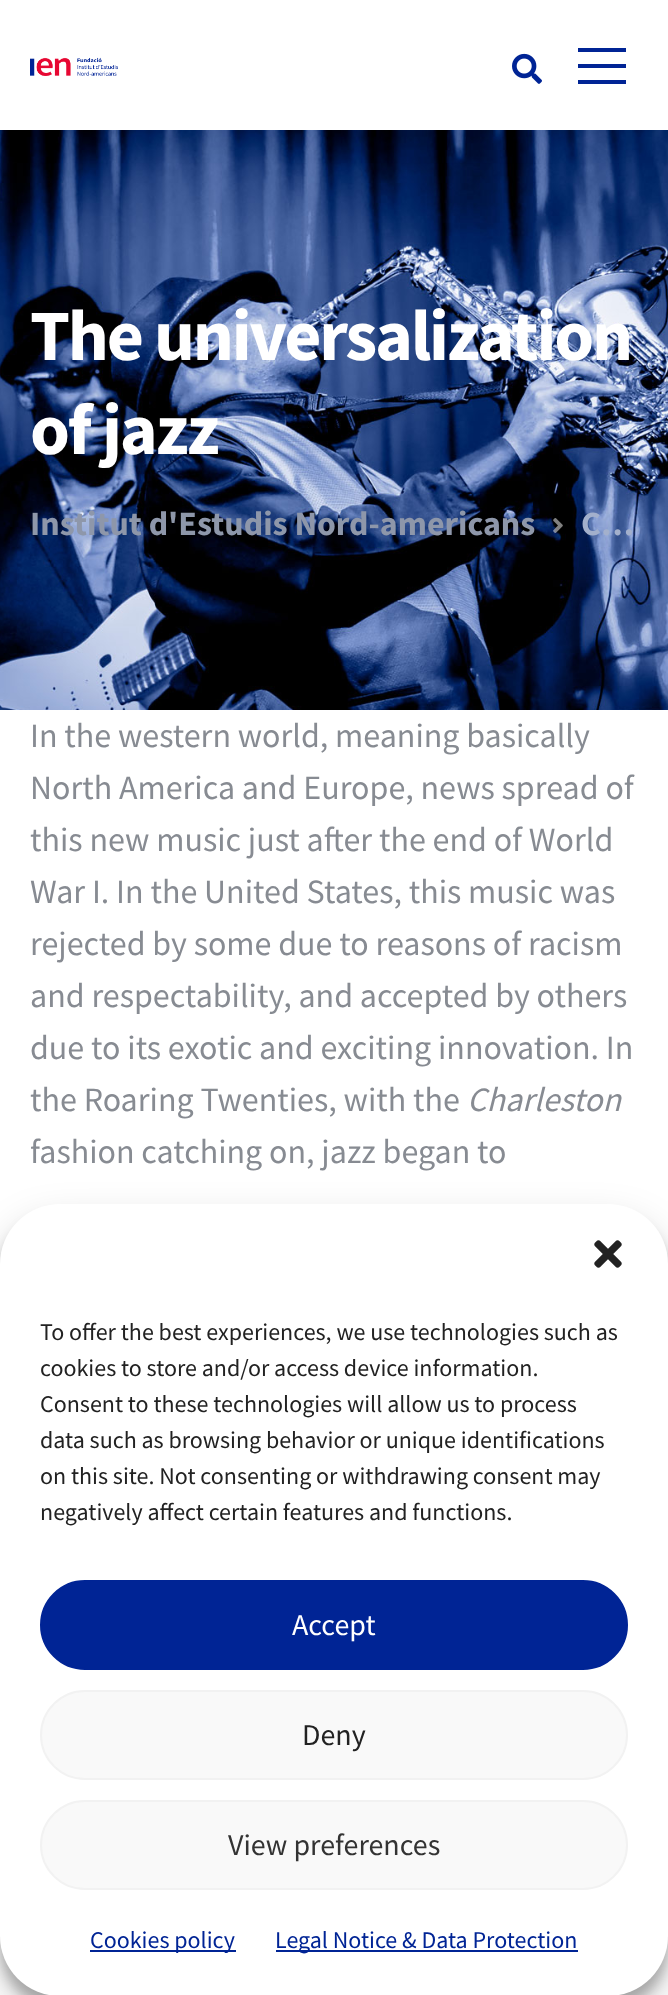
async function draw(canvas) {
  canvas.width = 668
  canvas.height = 1995
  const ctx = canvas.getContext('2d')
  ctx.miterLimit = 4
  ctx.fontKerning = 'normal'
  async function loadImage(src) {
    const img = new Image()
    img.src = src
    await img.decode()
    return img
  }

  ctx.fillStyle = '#fff'
  ctx.fillRect(0, 0, 668, 1995)
  ctx.drawImage(await loadImage('image2.png'), 0, 130, 668, 580)
  ctx.fillStyle = '#0000000d'
  ctx.filter = 'blur(20px)'
  ctx.beginPath()
  ctx.rect(0, 0, 668, 130)
  ctx.fill()
  ctx.filter = 'none'
  ctx.fillStyle = '#fff'
  ctx.fillRect(0, 0, 668, 130)
  ctx.drawImage(await loadImage('image0.png'), 30, 57, 88, 19)
  ctx.drawImage(await loadImage('image1.png'), 512, 53, 30, 31)
  ctx.fillStyle = '#002495'
  ctx.fillRect(578, 80, 48, 4)
  ctx.fillRect(578, 48, 48, 4)
  ctx.fillRect(578, 64, 48, 4)
  ctx.letterSpacing = '-2.2px'
  ctx.font = 'bold 72px Source Sans Pro'
  ctx.fillStyle = '#fff'
  ctx.fillText('The universalization', 30, 360)
  ctx.fillText('of jazz', 30, 454)
  ctx.letterSpacing = '0px'
  ctx.font = 'bold 34px Source Sans Pro'
  ctx.fillStyle = '#8e97aa'
  ctx.fillText('Institut d\'Estudis Nord-americans', 30, 535)
  ctx.drawImage(await loadImage('image3.png'), 553, 518, 10, 15)
  ctx.fillStyle = '#a3b0cc'
  ctx.fillText('C…', 581, 535)
  ctx.font = '34px Source Sans Pro'
  ctx.fillStyle = '#878b92'
  ctx.fillText('In the western world, meaning basically', 30, 747)
  ctx.fillText('North America and Europe, news spread of', 30, 799)
  ctx.fillText('this new music just after the end of World', 30, 851)
  ctx.fillText('War I. In the United States, this music was', 30, 903)
  ctx.fillText('rejected by some due to reasons of racism', 30, 955)
  ctx.fillText('and respectability, and accepted by others', 30, 1007)
  ctx.fillText('due to its exotic and exciting innovation. In', 30, 1059)
  ctx.fillText('the Roaring Twenties, with the', 30, 1111)
  ctx.font = 'italic 34px Source Sans Pro'
  ctx.fillText('Charleston', 467, 1111)
  ctx.font = '34px Source Sans Pro'
  ctx.fillText('fashion catching on, jazz began to', 30, 1163)
  ctx.fillStyle = '#0000003b'
  ctx.filter = 'blur(6px)'
  ctx.beginPath()
  ctx.roundRect(0, 1216, 668, 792, 60)
  ctx.fill()
  ctx.filter = 'none'
  ctx.fillStyle = '#00000030'
  ctx.filter = 'blur(20px)'
  ctx.beginPath()
  ctx.roundRect(0, 1224, 668, 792, 60)
  ctx.fill()
  ctx.filter = 'none'
  ctx.fillStyle = '#fff'
  ctx.beginPath()
  ctx.roundRect(0, 1204, 668, 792, 60)
  ctx.fill()
  ctx.drawImage(await loadImage('image4.png'), 594, 1240, 28, 28)
  ctx.font = '24px Source Sans Pro'
  ctx.fillStyle = '#222'
  ctx.fillText('To offer the best experiences, we use technologies such as', 40, 1340)
  ctx.fillText('cookies to store and/or access device information.', 40, 1376)
  ctx.fillText('Consent to these technologies will allow us to process', 40, 1412)
  ctx.fillText('data such as browsing behavior or unique identifications', 40, 1448)
  ctx.fillText('on this site. Not consenting or withdrawing consent may', 40, 1484)
  ctx.fillText('negatively affect certain features and functions.', 40, 1520)
  ctx.fillStyle = '#002495'
  ctx.beginPath()
  ctx.roundRect(41, 1581, 586, 88, 44)
  ctx.fill()
  ctx.strokeStyle = '#002495'
  ctx.lineWidth = 2
  ctx.stroke()
  ctx.font = '30px Source Sans Pro'
  ctx.fillStyle = '#fff'
  ctx.fillText('Accept', 292, 1635)
  ctx.fillStyle = '#f9f9f9'
  ctx.beginPath()
  ctx.roundRect(41, 1691, 586, 88, 44)
  ctx.fill()
  ctx.strokeStyle = '#f2f2f2'
  ctx.stroke()
  ctx.fillStyle = '#222'
  ctx.fillText('Deny', 302, 1745)
  ctx.fillStyle = '#f9f9f9'
  ctx.beginPath()
  ctx.roundRect(41, 1801, 586, 88, 44)
  ctx.fill()
  ctx.stroke()
  ctx.fillStyle = '#333'
  ctx.fillText('View preferences', 228, 1855)
  ctx.fillStyle = '#002495'
  ctx.fillRect(90, 1950, 146, 2)
  ctx.font = '24px Source Sans Pro'
  ctx.fillText('Cookies policy', 90, 1948)
  ctx.fillRect(276, 1950, 302, 2)
  ctx.fillText('Legal Notice & Data Protection', 275, 1948)
}

draw(document.querySelector('canvas'))
